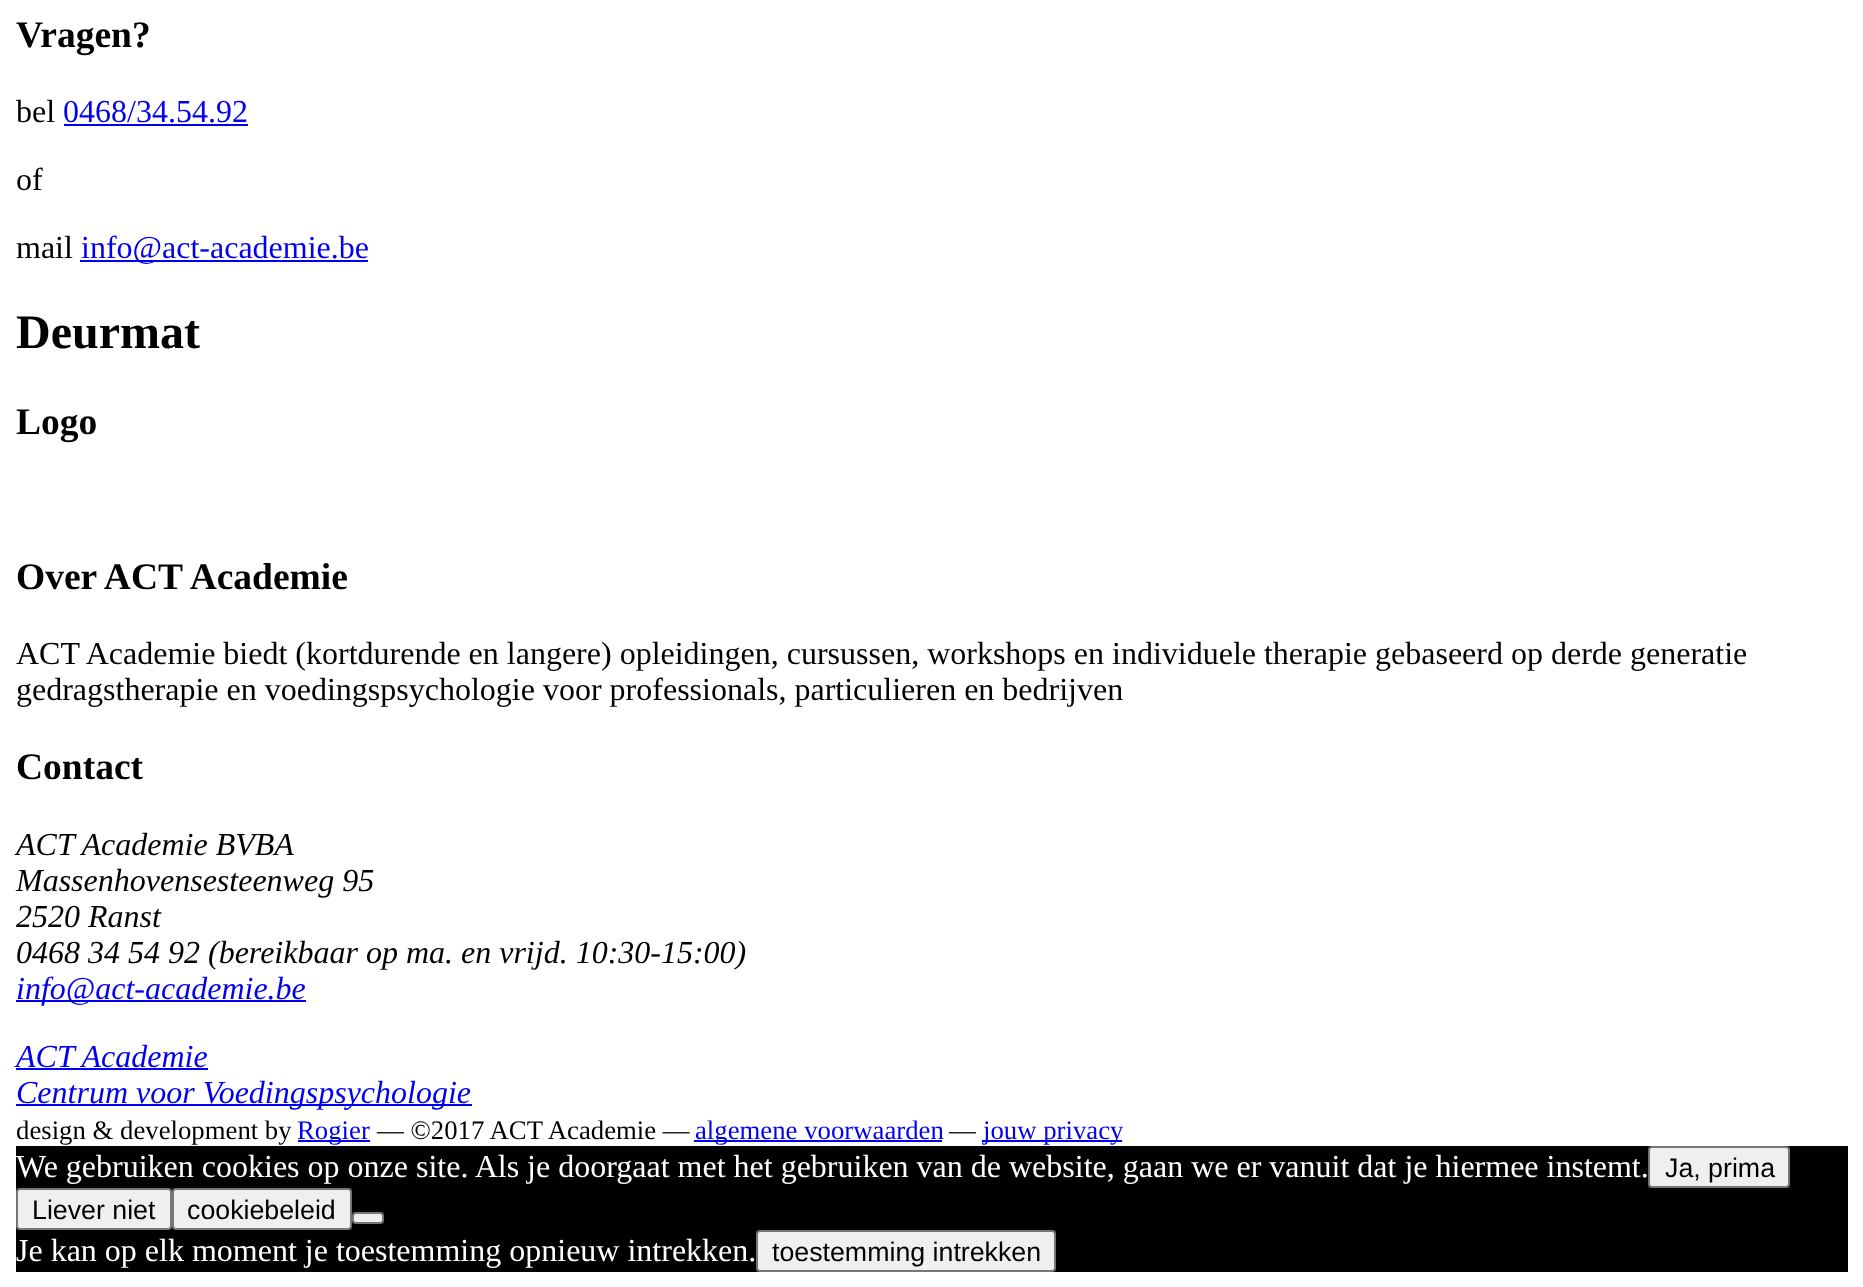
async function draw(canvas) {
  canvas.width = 1863
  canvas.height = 1287
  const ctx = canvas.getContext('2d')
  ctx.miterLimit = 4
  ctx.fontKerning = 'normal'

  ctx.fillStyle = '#fff'
  ctx.fillRect(0, 0, 1863, 1287)
  ctx.font = 'bold 37.5px Liberation Serif'
  ctx.fillStyle = '#000'
  ctx.fillText('Vragen?', 16, 47)
  ctx.font = '32px Liberation Serif'
  ctx.fillText('bel', 16, 122)
  ctx.fillStyle = '#00e'
  ctx.fillText('0468/34.54.92', 63, 122)
  ctx.fillRect(64, 124, 184, 2)
  ctx.fillStyle = '#000'
  ctx.fillText('of', 16, 190)
  ctx.fillText('mail', 16, 258)
  ctx.fillStyle = '#00e'
  ctx.fillRect(80, 260, 288, 2)
  ctx.fillText('info@act-academie.be', 81, 258)
  ctx.font = 'bold 48px Liberation Serif'
  ctx.fillStyle = '#000'
  ctx.fillText('Deurmat', 16, 348)
  ctx.font = 'bold 37.5px Liberation Serif'
  ctx.fillText('Logo', 16, 434)
  ctx.fillText('Over ACT Academie', 16, 589)
  ctx.font = '32px Liberation Serif'
  ctx.fillText('ACT Academie biedt (kortdurende en langere) opleidingen, cursussen, workshops en individuele therapie gebaseerd op derde generatie', 16, 664)
  ctx.fillText('gedragstherapie en voedingspsychologie voor professionals, particulieren en bedrijven', 16, 700)
  ctx.font = 'bold 37.5px Liberation Serif'
  ctx.fillText('Contact', 16, 779)
  ctx.font = 'italic 32px Liberation Serif'
  ctx.fillText('ACT Academie BVBA', 16, 855)
  ctx.fillText('Massenhovensesteenweg 95', 16, 891)
  ctx.fillText('2520 Ranst', 16, 927)
  ctx.fillText('0468 34 54 92 (bereikbaar op ma. en vrijd. 10:30-15:00)', 16, 963)
  ctx.fillStyle = '#00e'
  ctx.fillRect(16, 1000, 290, 2)
  ctx.fillText('info@act-academie.be', 16, 999)
  ctx.fillText('ACT Academie', 16, 1067)
  ctx.fillRect(16, 1068, 192, 2)
  ctx.fillRect(16, 1104, 456, 2)
  ctx.fillText('Centrum voor Voedingspsychologie', 16, 1103)
  ctx.font = '26.75px Liberation Serif'
  ctx.fillStyle = '#000'
  ctx.fillText('design & development by', 16, 1139)
  ctx.fillStyle = '#00e'
  ctx.fillRect(298, 1140, 72, 2)
  ctx.fillText('Rogier', 297, 1139)
  ctx.fillStyle = '#000'
  ctx.fillText('— ©2017 ACT Academie —', 377, 1139)
  ctx.fillStyle = '#00e'
  ctx.fillRect(694, 1140, 248, 2)
  ctx.fillText('algemene voorwaarden', 695, 1139)
  ctx.fillStyle = '#000'
  ctx.fillText('—', 949, 1139)
  ctx.fillStyle = '#00e'
  ctx.fillRect(982, 1140, 140, 2)
  ctx.fillText('jouw privacy', 983, 1139)
  ctx.fillStyle = '#000'
  ctx.fillRect(16, 1146, 1832, 126)
  ctx.font = '32px Liberation Serif'
  ctx.fillStyle = '#fff'
  ctx.fillText('We gebruiken cookies op onze site. Als je doorgaat met het gebruiken van de website, gaan we er vanuit dat je hiermee instemt.', 16, 1177)
  ctx.fillStyle = '#efefef'
  ctx.beginPath()
  ctx.roundRect(1649, 1147, 140, 40, 3)
  ctx.fill()
  ctx.strokeStyle = '#767676'
  ctx.lineWidth = 2
  ctx.stroke()
  ctx.font = '26.75px Liberation Sans'
  ctx.fillStyle = '#000'
  ctx.fillText('Ja, prima', 1665, 1177)
  ctx.fillStyle = '#efefef'
  ctx.beginPath()
  ctx.roundRect(17, 1189, 154, 40, 3)
  ctx.fill()
  ctx.stroke()
  ctx.fillStyle = '#000'
  ctx.fillText('Liever niet', 32, 1219)
  ctx.fillStyle = '#efefef'
  ctx.beginPath()
  ctx.roundRect(173, 1189, 178, 40, 3)
  ctx.fill()
  ctx.stroke()
  ctx.fillStyle = '#000'
  ctx.fillText('cookiebeleid', 187, 1219)
  ctx.fillStyle = '#efefef'
  ctx.beginPath()
  ctx.roundRect(353, 1213, 30, 10, 3)
  ctx.fill()
  ctx.stroke()
  ctx.font = '32px Liberation Serif'
  ctx.fillStyle = '#fff'
  ctx.fillText('Je kan op elk moment je toestemming opnieuw intrekken.', 16, 1261)
  ctx.fillStyle = '#efefef'
  ctx.beginPath()
  ctx.roundRect(757, 1231, 298, 40, 3)
  ctx.fill()
  ctx.stroke()
  ctx.font = '26.75px Liberation Sans'
  ctx.fillStyle = '#000'
  ctx.fillText('toestemming intrekken', 772, 1261)
}

draw(document.querySelector('canvas'))
